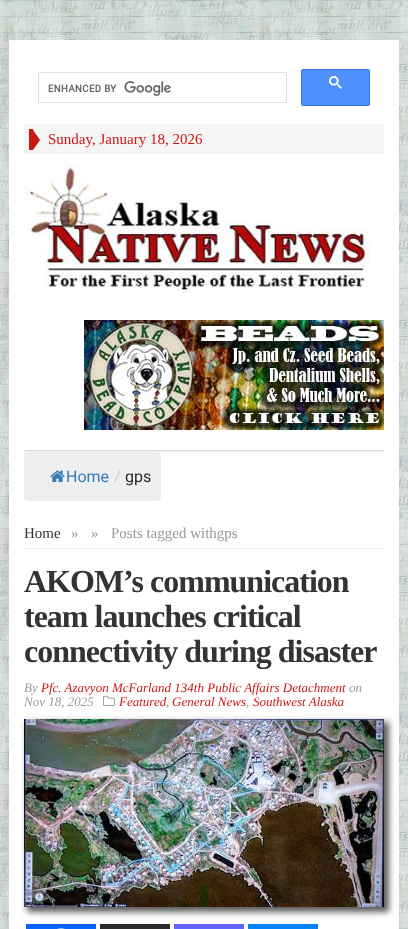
async function draw(canvas) {
  canvas.width = 408
  canvas.height = 929
  const ctx = canvas.getContext('2d')
  ctx.miterLimit = 4
  ctx.fontKerning = 'normal'
  async function loadImage(src) {
    const img = new Image()
    img.src = src
    await img.decode()
    return img
  }

  ctx.fillStyle = '#fff'
  ctx.fillRect(0, 0, 408, 929)
  ctx.drawImage(await loadImage('image0.png'), 0, 0, 408, 929)
  ctx.fillRect(9, 40, 390, 889)
  ctx.strokeStyle = '#dfe1e5'
  ctx.strokeRect(38.5, 72.5, 248, 30)
  ctx.drawImage(await loadImage('image1.png'), 48, 81, 123, 15)
  ctx.fillStyle = '#4d90fe'
  ctx.beginPath()
  ctx.roundRect(301.5, 69.5, 68, 36, 1.5)
  ctx.fill()
  ctx.strokeStyle = '#3079ed'
  ctx.stroke()
  ctx.drawImage(await loadImage('image2.png'), 329, 76, 13, 13)
  ctx.fillStyle = '#f5f5f5'
  ctx.fillRect(24, 124, 360, 30)
  ctx.fillStyle = '#cd1713'
  ctx.fillRect(29, 129, 4, 21)
  ctx.beginPath()
  ctx.moveTo(33, 150)
  ctx.lineTo(33, 130)
  ctx.lineTo(40, 140)
  ctx.closePath()
  ctx.fill()
  ctx.font = '15px Liberation Serif'
  ctx.fillText('Sunday, January 18, 2026', 48, 144)
  ctx.drawImage(await loadImage('image3.png'), 24, 164, 346, 130)
  ctx.drawImage(await loadImage('image4.png'), 84, 320, 300, 110)
  ctx.fillStyle = '#ddd'
  ctx.fillRect(24, 450, 360, 1)
  ctx.fillStyle = '#efefef'
  ctx.fillRect(24, 451, 360, 1)
  ctx.fillStyle = '#edeff0'
  ctx.beginPath()
  ctx.roundRect(24, 452, 137, 49, 4)
  ctx.fill()
  ctx.drawImage(await loadImage('image5.png'), 50, 470, 15, 12)
  ctx.font = '16px Roboto'
  ctx.fillStyle = '#337ab7'
  ctx.fillText('Home', 66, 482)
  ctx.fillStyle = '#ccc'
  ctx.fillText('/', 114, 482)
  ctx.fillStyle = '#27272a'
  ctx.fillText('gps', 125, 482)
  ctx.fillStyle = '#efefef'
  ctx.fillRect(24, 548, 360, 1)
  ctx.font = '15px Liberation Serif'
  ctx.fillStyle = '#333'
  ctx.fillText('Home', 24, 538)
  ctx.fillStyle = '#999'
  ctx.fillText('»', 71, 538)
  ctx.fillText('»', 91, 538)
  ctx.fillText('Posts tagged withgps', 111, 538)
  ctx.letterSpacing = '-1px'
  ctx.font = 'bold 32px Liberation Serif'
  ctx.fillStyle = '#333'
  ctx.fillText('AKOM’s communication', 24, 592)
  ctx.fillText('team launches critical', 24, 627)
  ctx.fillText('connectivity during disaster', 24, 662)
  ctx.letterSpacing = '0px'
  ctx.font = 'italic 13px Liberation Serif'
  ctx.fillStyle = '#999'
  ctx.fillText('By', 24, 692)
  ctx.fillStyle = '#cd1713'
  ctx.fillText('Pfc. Azavyon McFarland 134th Public Affairs Detachment', 41, 692)
  ctx.fillStyle = '#999'
  ctx.fillText('on', 349, 692)
  ctx.fillText('Nov 18, 2025', 24, 706)
  ctx.drawImage(await loadImage('image6.png'), 103, 695, 13, 11)
  ctx.fillStyle = '#cd1713'
  ctx.fillText('Featured', 119, 706)
  ctx.fillStyle = '#999'
  ctx.fillText(',', 166, 706)
  ctx.fillStyle = '#cd1713'
  ctx.fillText('General News', 172, 706)
  ctx.fillStyle = '#999'
  ctx.fillText(',', 246, 706)
  ctx.fillStyle = '#cd1713'
  ctx.fillText('Southwest Alaska', 253, 706)
  ctx.fillStyle = '#5b5b5b'
  ctx.filter = 'blur(3px)'
  ctx.beginPath()
  ctx.rect(27, 722, 362, 190)
  ctx.fill()
  ctx.filter = 'none'
  ctx.drawImage(await loadImage('image7.png'), 24, 719, 360, 188)
  ctx.fillStyle = '#0765fe'
  ctx.fillRect(26, 924, 70, 5)
  ctx.drawImage(await loadImage('image8.png'), 57, 928, 8, 1)
  ctx.fillStyle = '#2a2a2a'
  ctx.fillRect(100, 924, 70, 5)
  ctx.fillStyle = '#6364ff'
  ctx.fillRect(174, 924, 70, 5)
  ctx.fillStyle = '#0085ff'
  ctx.fillRect(248, 924, 70, 5)
}

draw(document.querySelector('canvas'))
